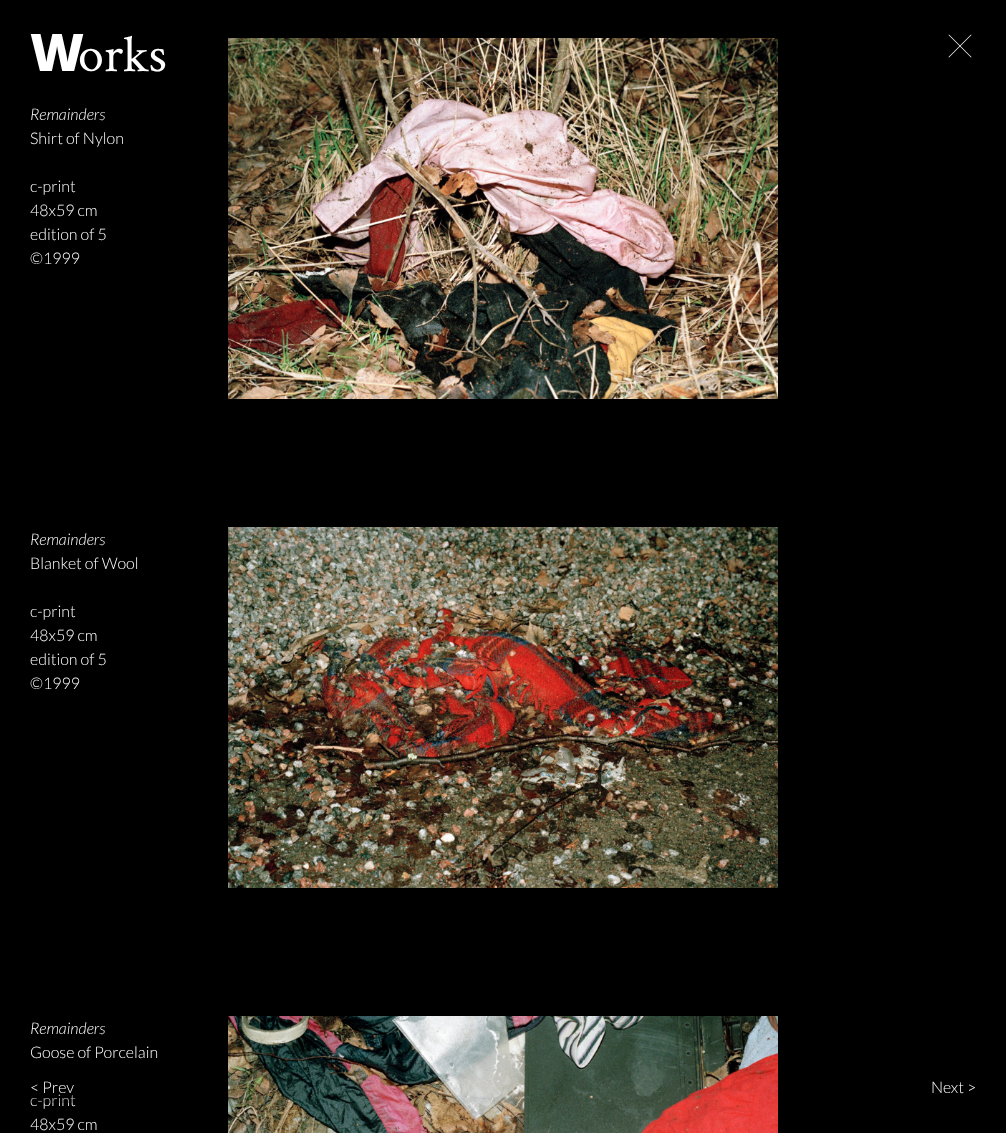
async function draw(canvas) {
  canvas.width = 1006
  canvas.height = 1133
  const ctx = canvas.getContext('2d')
  ctx.miterLimit = 4
  ctx.fontKerning = 'normal'
  async function loadImage(src) {
    const img = new Image()
    img.src = src
    await img.decode()
    return img
  }

  ctx.fillStyle = '#000'
  ctx.fillRect(0, 0, 1006, 1133)
  ctx.letterSpacing = '-6px'
  ctx.font = '900 52px Noto Sans'
  ctx.fillStyle = '#fff'
  ctx.fillText('W', 30, 71)
  ctx.letterSpacing = '0px'
  ctx.font = '52px Crimson Text'
  ctx.fillText('orks', 78, 71)
  ctx.font = 'italic 300 16px Lato'
  ctx.fillText('Remainders', 30, 120)
  ctx.font = '300 16px Lato'
  ctx.fillText('Shirt of Nylon', 30, 144)
  ctx.fillText('c-print', 30, 192)
  ctx.fillText('48x59 cm', 30, 216)
  ctx.fillText('edition of 5', 30, 240)
  ctx.fillText('©1999', 30, 264)
  ctx.drawImage(await loadImage('image0.png'), 228, 38, 550, 361)
  ctx.font = 'italic 300 16px Lato'
  ctx.fillText('Remainders', 30, 545)
  ctx.font = '300 16px Lato'
  ctx.fillText('Blanket of Wool', 30, 569)
  ctx.fillText('c-print', 30, 617)
  ctx.fillText('48x59 cm', 30, 641)
  ctx.fillText('edition of 5', 30, 665)
  ctx.fillText('©1999', 30, 689)
  ctx.drawImage(await loadImage('image1.png'), 228, 527, 550, 361)
  ctx.font = 'italic 300 16px Lato'
  ctx.fillText('Remainders', 30, 1034)
  ctx.font = '300 16px Lato'
  ctx.fillText('Goose of Porcelain', 30, 1058)
  ctx.fillText('c-print', 30, 1106)
  ctx.fillText('48x59 cm', 30, 1130)
  ctx.drawImage(await loadImage('image2.png'), 228, 1016, 550, 117)
  ctx.fillStyle = '#00000040'
  ctx.fillRect(30, 1094, 45, 9)
  ctx.fillStyle = '#fff'
  ctx.fillText('< Prev', 30, 1093)
  ctx.fillText('Next >', 931, 1093)
  ctx.beginPath()
  ctx.moveTo(949, 34.5)
  ctx.lineTo(971.5, 57)
  ctx.lineTo(971, 57.5)
  ctx.lineTo(948.5, 35)
  ctx.closePath()
  ctx.fill()
  ctx.beginPath()
  ctx.moveTo(948.5, 57)
  ctx.lineTo(971, 34.5)
  ctx.lineTo(971.5, 35)
  ctx.lineTo(949, 57.5)
  ctx.closePath()
  ctx.fill()
}

draw(document.querySelector('canvas'))
